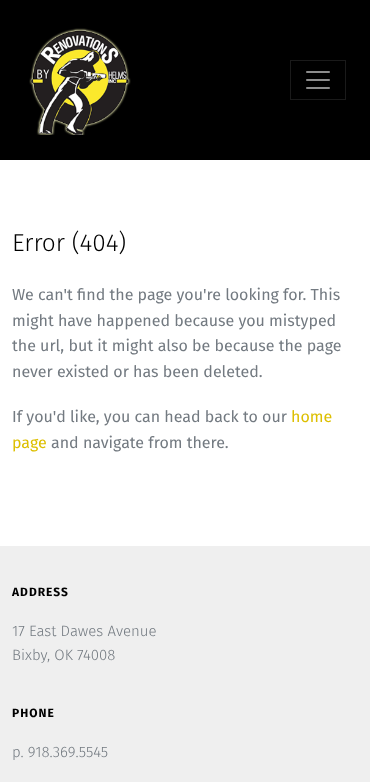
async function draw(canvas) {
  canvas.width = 370
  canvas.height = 782
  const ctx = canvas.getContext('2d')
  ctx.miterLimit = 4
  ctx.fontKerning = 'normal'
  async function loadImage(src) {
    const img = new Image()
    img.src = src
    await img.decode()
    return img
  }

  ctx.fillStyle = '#fff'
  ctx.fillRect(0, 0, 370, 782)
  ctx.fillStyle = '#000'
  ctx.fillRect(0, 0, 370, 160)
  ctx.drawImage(await loadImage('image0.png'), 29, 28, 102, 107)
  ctx.strokeStyle = '#1a1a1a'
  ctx.strokeRect(290.5, 60.5, 55, 39)
  ctx.drawImage(await loadImage('image1.png'), 306, 71, 24, 18)
  ctx.font = '300 24.5px Fira Sans'
  ctx.fillText('Error (404)', 12, 251)
  ctx.font = '16px Fira Sans'
  ctx.fillStyle = '#737a81'
  ctx.fillText('We can\'t find the page you\'re looking for. This', 12, 300)
  ctx.fillText('might have happened because you mistyped', 12, 326)
  ctx.fillText('the url, but it might also be because the page', 12, 351)
  ctx.fillText('never existed or has been deleted.', 12, 377)
  ctx.fillText('If you\'d like, you can head back to our', 12, 422)
  ctx.fillStyle = '#ddbf01'
  ctx.fillText('home', 291, 422)
  ctx.fillText('page', 12, 448)
  ctx.fillStyle = '#737a81'
  ctx.fillText('and navigate from there.', 51, 448)
  ctx.fillStyle = '#efefef'
  ctx.fillRect(0, 546, 370, 236)
  ctx.letterSpacing = '1px'
  ctx.font = 'bold 12px Fira Sans'
  ctx.fillStyle = '#000'
  ctx.fillText('ADDRESS', 12, 596)
  ctx.letterSpacing = '0px'
  ctx.font = '300 15px Fira Sans'
  ctx.fillStyle = '#737a81'
  ctx.fillText('17 East Dawes Avenue', 12, 636)
  ctx.fillText('Bixby, OK 74008', 12, 660)
  ctx.letterSpacing = '1px'
  ctx.font = 'bold 12px Fira Sans'
  ctx.fillStyle = '#000'
  ctx.fillText('PHONE', 12, 717)
  ctx.letterSpacing = '0px'
  ctx.font = '300 15px Fira Sans'
  ctx.fillStyle = '#737a81'
  ctx.fillText('p. 918.369.5545', 12, 757)
}

draw(document.querySelector('canvas'))
